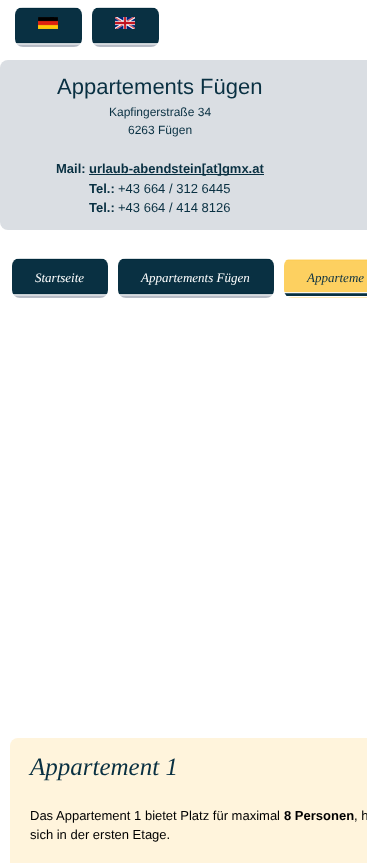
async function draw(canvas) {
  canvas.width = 367
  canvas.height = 863
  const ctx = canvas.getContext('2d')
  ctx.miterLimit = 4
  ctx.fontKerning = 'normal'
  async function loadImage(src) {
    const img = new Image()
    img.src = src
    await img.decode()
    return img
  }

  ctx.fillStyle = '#fff'
  ctx.fillRect(0, 0, 367, 863)
  ctx.drawImage(await loadImage('image0.png'), 15, 7, 67, 40)
  ctx.drawImage(await loadImage('image1.png'), 38, 17, 20, 12)
  ctx.drawImage(await loadImage('image0.png'), 92, 7, 67, 40)
  ctx.drawImage(await loadImage('image2.png'), 115, 17, 20, 12)
  ctx.fillStyle = '#dadee3'
  ctx.beginPath()
  ctx.roundRect(0, 60, 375, 170, 8)
  ctx.fill()
  ctx.font = '22px Liberation Sans'
  ctx.fillStyle = '#093042'
  ctx.fillText('Appartements Fügen', 57, 94)
  ctx.font = '12px Liberation Sans'
  ctx.fillText('Kapfingerstraße 34', 109, 116)
  ctx.fillText('6263 Fügen', 128, 134)
  ctx.font = 'bold 13px Liberation Sans'
  ctx.fillText('Mail:', 56, 173)
  ctx.fillRect(89, 174, 175, 1)
  ctx.fillText('urlaub-abendstein[at]gmx.at', 89, 173)
  ctx.fillText('Tel.:', 89, 193)
  ctx.font = '13px Liberation Sans'
  ctx.fillText('+43 664 / 312 6445', 118, 193)
  ctx.font = 'bold 13px Liberation Sans'
  ctx.fillText('Tel.:', 89, 212)
  ctx.font = '13px Liberation Sans'
  ctx.fillText('+43 664 / 414 8126', 118, 212)
  ctx.drawImage(await loadImage('image3.png'), 12, 258, 96, 40)
  ctx.font = 'italic 13px Liberation Serif'
  ctx.fillStyle = '#fff'
  ctx.fillText('Startseite', 35, 282)
  ctx.drawImage(await loadImage('image4.png'), 118, 258, 156, 40)
  ctx.fillText('Appartements Fügen', 141, 282)
  ctx.drawImage(await loadImage('image5.png'), 284, 259, 83, 39)
  ctx.fillStyle = '#093042'
  ctx.fillText('Apparteme', 307, 282)
  ctx.fillStyle = '#fff4dc'
  ctx.beginPath()
  ctx.roundRect(10, 738, 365, 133, 8)
  ctx.fill()
  ctx.font = 'italic 25px Liberation Serif'
  ctx.fillStyle = '#093042'
  ctx.fillText('Appartement 1', 30, 775)
  ctx.font = '13px Liberation Sans'
  ctx.fillStyle = '#000'
  ctx.fillText('Das Appartement 1 bietet Platz für maximal', 30, 820)
  ctx.font = 'bold 13px Liberation Sans'
  ctx.fillText('8 Personen', 284, 820)
  ctx.font = '13px Liberation Sans'
  ctx.fillText(', h', 354, 820)
  ctx.fillText('sich in der ersten Etage.', 30, 839)
}

draw(document.querySelector('canvas'))
